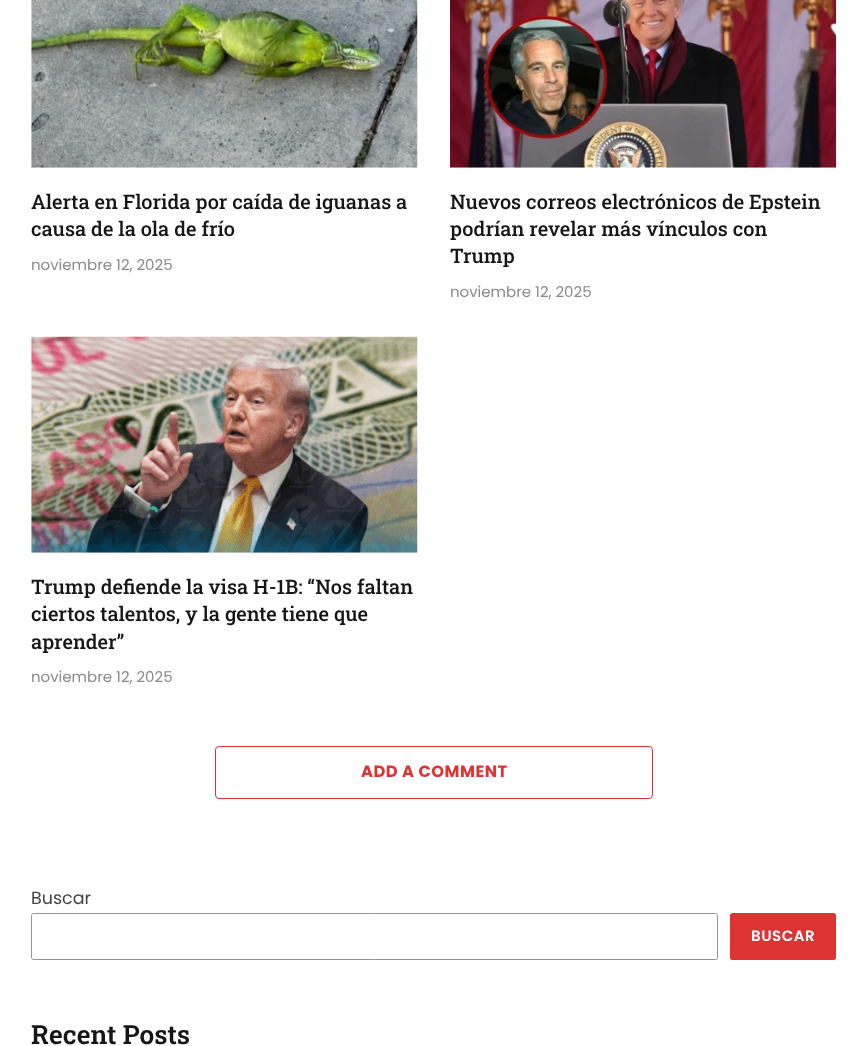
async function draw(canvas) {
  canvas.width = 867
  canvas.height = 1046
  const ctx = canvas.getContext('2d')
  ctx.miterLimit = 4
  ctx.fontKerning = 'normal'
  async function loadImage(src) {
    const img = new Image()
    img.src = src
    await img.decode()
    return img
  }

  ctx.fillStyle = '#fff'
  ctx.fillRect(0, 0, 867, 1046)
  ctx.drawImage(await loadImage('image0.png'), 31, 0, 387, 168)
  ctx.font = '500 20px Roboto Slab'
  ctx.fillStyle = '#161616'
  ctx.fillText('Alerta en Florida por caída de iguanas a', 31, 209)
  ctx.fillText('causa de la ola de frío', 31, 236)
  ctx.font = '15px Poppins'
  ctx.fillStyle = '#8a8a8a'
  ctx.fillText('noviembre 12, 2025', 31, 270)
  ctx.drawImage(await loadImage('image1.png'), 450, 0, 387, 168)
  ctx.font = '500 20px Roboto Slab'
  ctx.fillStyle = '#161616'
  ctx.fillText('Nuevos correos electrónicos de Epstein', 450, 209)
  ctx.fillText('podrían revelar más vínculos con', 450, 236)
  ctx.fillText('Trump', 450, 263)
  ctx.font = '15px Poppins'
  ctx.fillStyle = '#8a8a8a'
  ctx.fillText('noviembre 12, 2025', 450, 297)
  ctx.drawImage(await loadImage('image2.png'), 31, 336, 387, 217)
  ctx.font = '500 20px Roboto Slab'
  ctx.fillStyle = '#161616'
  ctx.fillText('Trump defiende la visa H-1B: “Nos faltan', 31, 594)
  ctx.fillText('ciertos talentos, y la gente tiene que', 31, 621)
  ctx.fillText('aprender”', 31, 649)
  ctx.font = '15px Poppins'
  ctx.fillStyle = '#8a8a8a'
  ctx.fillText('noviembre 12, 2025', 31, 682)
  ctx.beginPath()
  ctx.roundRect(215.5, 746.5, 437, 52, 3.5)
  ctx.strokeStyle = '#d33'
  ctx.stroke()
  ctx.letterSpacing = '0.5px'
  ctx.font = 'bold 16.25px Poppins'
  ctx.fillStyle = '#d33'
  ctx.fillText('ADD A COMMENT', 361, 777)
  ctx.letterSpacing = '0px'
  ctx.font = '17.5px Poppins'
  ctx.fillStyle = '#444'
  ctx.fillText('Buscar', 31, 904)
  ctx.beginPath()
  ctx.roundRect(31.5, 913.5, 686, 46, 2)
  ctx.strokeStyle = '#949494'
  ctx.stroke()
  ctx.fillStyle = '#d33'
  ctx.beginPath()
  ctx.roundRect(730, 913, 106, 47, 2.5)
  ctx.fill()
  ctx.letterSpacing = '0.5px'
  ctx.font = '600 15px Poppins'
  ctx.fillStyle = '#fff'
  ctx.fillText('BUSCAR', 751, 941)
  ctx.letterSpacing = '0px'
  ctx.font = '600 26.25px Roboto Slab'
  ctx.fillStyle = '#161616'
  ctx.fillText('Recent Posts', 31, 1044)
}

draw(document.querySelector('canvas'))
